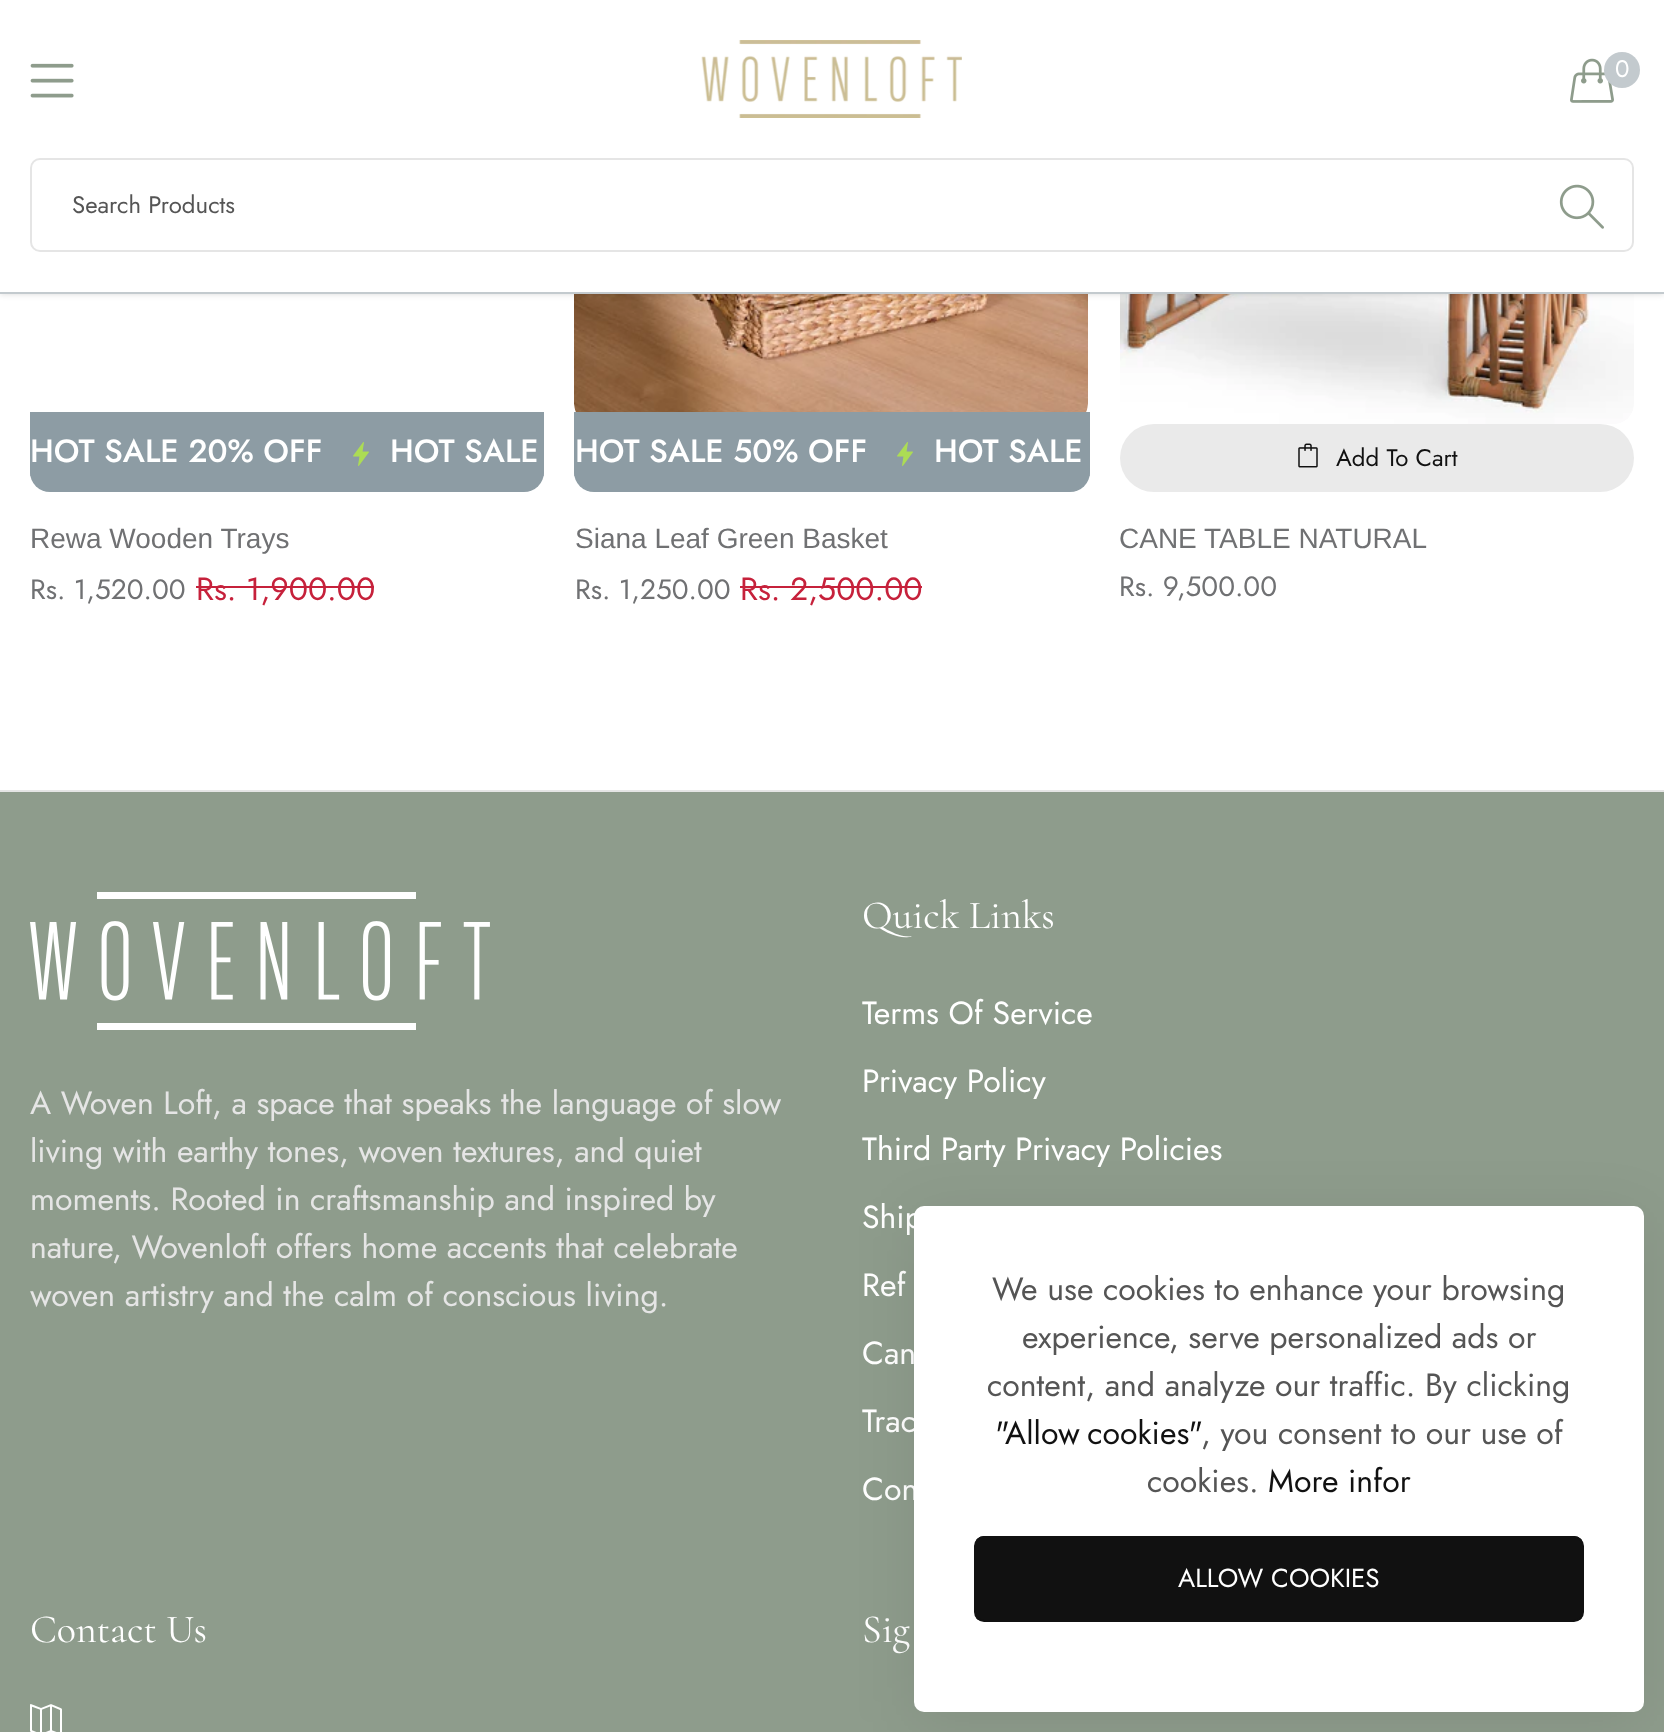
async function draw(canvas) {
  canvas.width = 1664
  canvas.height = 1732
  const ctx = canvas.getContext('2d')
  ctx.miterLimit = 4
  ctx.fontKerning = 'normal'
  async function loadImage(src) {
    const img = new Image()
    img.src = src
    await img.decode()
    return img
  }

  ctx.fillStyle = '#fff'
  ctx.fillRect(0, 0, 1664, 1732)
  ctx.drawImage(await loadImage('image5.png'), 574, 294, 514, 118)
  ctx.drawImage(await loadImage('image6.png'), 1120, 294, 514, 130)
  ctx.fillStyle = '#00000026'
  ctx.filter = 'blur(3px)'
  ctx.beginPath()
  ctx.rect(0, 0, 1664, 294)
  ctx.fill()
  ctx.filter = 'none'
  ctx.fillStyle = '#fff'
  ctx.fillRect(0, 0, 1664, 292)
  ctx.drawImage(await loadImage('image0.png'), 30, 63, 44, 35)
  ctx.drawImage(await loadImage('image1.png'), 701, 40, 261, 78)
  ctx.drawImage(await loadImage('image2.png'), 1570, 58, 44, 45)
  ctx.fillStyle = '#c3cace'
  ctx.beginPath()
  ctx.arc(1622, 70, 18, 0, 2 * Math.PI)
  ctx.fill()
  ctx.font = '24px Jost'
  ctx.fillStyle = '#fff'
  ctx.fillText('0', 1615, 77)
  ctx.beginPath()
  ctx.roundRect(31, 159, 1602, 92, 9)
  ctx.strokeStyle = '#e5e5e5'
  ctx.lineWidth = 2
  ctx.stroke()
  ctx.fillStyle = '#555'
  ctx.fillText('Search Products', 72, 213)
  ctx.drawImage(await loadImage('image3.png'), 1559, 184, 45, 45)
  ctx.fillStyle = '#c3cace'
  ctx.fillRect(0, 292, 1664, 2)
  ctx.fillStyle = '#8d9ca4'
  ctx.beginPath()
  ctx.roundRect(30, 412, 514, 80, [0, 0, 20, 20])
  ctx.fill()
  ctx.save()
  ctx.beginPath()
  ctx.roundRect(30, -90, 514, 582, 20)
  ctx.clip()
  ctx.fillRect(30, 428, 360, 48)
  ctx.restore()
  ctx.font = '500 32px Jost'
  ctx.fillStyle = '#fff'
  ctx.fillText('HOT SALE 20% OFF', 30, 462)
  ctx.drawImage(await loadImage('image4.png'), 353, 442, 16, 24)
  ctx.save()
  ctx.beginPath()
  ctx.roundRect(30, -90, 514, 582, 20)
  ctx.clip()
  ctx.fillStyle = '#8d9ca4'
  ctx.fillRect(390, 428, 154, 48)
  ctx.restore()
  ctx.fillText('HOT SALE', 390, 462)
  ctx.font = '28px Liberation Sans'
  ctx.fillStyle = '#707173'
  ctx.fillText('Rewa Wooden Trays', 30, 548)
  ctx.font = '28px Jost'
  ctx.fillText('Rs. 1,520.00', 30, 599)
  ctx.font = '32px Jost'
  ctx.fillStyle = '#c6213b'
  ctx.fillText('Rs. 1,900.00', 196, 600)
  ctx.fillRect(196, 586, 178, 2)
  ctx.fillStyle = '#8d9ca4'
  ctx.beginPath()
  ctx.roundRect(574, 412, 516, 80, [0, 0, 20, 20])
  ctx.fill()
  ctx.save()
  ctx.beginPath()
  ctx.roundRect(574, -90, 516, 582, 20)
  ctx.clip()
  ctx.fillRect(574, 428, 360, 48)
  ctx.restore()
  ctx.font = '500 32px Jost'
  ctx.fillStyle = '#fff'
  ctx.fillText('HOT SALE 50% OFF', 575, 462)
  ctx.drawImage(await loadImage('image4.png'), 897, 442, 16, 24)
  ctx.save()
  ctx.beginPath()
  ctx.roundRect(574, -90, 516, 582, 20)
  ctx.clip()
  ctx.fillStyle = '#8d9ca4'
  ctx.fillRect(934, 428, 156, 48)
  ctx.restore()
  ctx.fillText('HOT SALE', 934, 462)
  ctx.font = '28px Liberation Sans'
  ctx.fillStyle = '#707173'
  ctx.fillText('Siana Leaf Green Basket', 575, 548)
  ctx.font = '28px Jost'
  ctx.fillText('Rs. 1,250.00', 575, 599)
  ctx.font = '32px Jost'
  ctx.fillStyle = '#c6213b'
  ctx.fillText('Rs. 2,500.00', 740, 600)
  ctx.fillRect(740, 586, 182, 2)
  ctx.fillStyle = '#eaeaea'
  ctx.beginPath()
  ctx.roundRect(1120, 424, 514, 68, 34)
  ctx.fill()
  ctx.drawImage(await loadImage('image7.png'), 1298, 443, 20, 25)
  ctx.font = '24px Jost'
  ctx.fillStyle = '#111'
  ctx.fillText('Add To Cart', 1336, 466)
  ctx.font = '28px Liberation Sans'
  ctx.fillStyle = '#707173'
  ctx.fillText('CANE TABLE NATURAL', 1119, 548)
  ctx.font = '28px Jost'
  ctx.fillText('Rs. 9,500.00', 1119, 596)
  ctx.fillStyle = '#8e9c8c'
  ctx.fillRect(0, 792, 1664, 940)
  ctx.fillStyle = '#e5e5e5'
  ctx.fillRect(0, 790, 1664, 2)
  ctx.drawImage(await loadImage('image8.png'), 30, 892, 460, 138)
  ctx.font = '32px Jost'
  ctx.fillText('A Woven Loft, a space that speaks the language of slow', 30, 1114)
  ctx.fillText('living with earthy tones, woven textures, and quiet', 30, 1162)
  ctx.fillText('moments. Rooted in craftsmanship and inspired by', 30, 1210)
  ctx.fillText('nature, Wovenloft offers home accents that celebrate', 30, 1258)
  ctx.fillText('woven artistry and the calm of conscious living.', 30, 1306)
  ctx.font = '40px Cormorant'
  ctx.fillStyle = '#fff'
  ctx.fillText('Quick Links', 862, 928)
  ctx.font = '32px Jost'
  ctx.fillText('Terms Of Service', 862, 1024)
  ctx.fillText('Privacy Policy', 862, 1092)
  ctx.fillText('Third Party Privacy Policies', 862, 1160)
  ctx.fillText('Ship', 862, 1228)
  ctx.fillText('Ref', 862, 1296)
  ctx.fillText('Can', 862, 1364)
  ctx.fillText('Trac', 862, 1432)
  ctx.fillText('Con', 862, 1500)
  ctx.font = '40px Cormorant'
  ctx.fillText('Contact Us', 30, 1642)
  ctx.drawImage(await loadImage('image9.png'), 30, 1704, 32, 28)
  ctx.fillText('Sig', 862, 1642)
  ctx.fillStyle = '#00000014'
  ctx.filter = 'blur(30px)'
  ctx.beginPath()
  ctx.roundRect(914, 1216, 730, 506, 10)
  ctx.fill()
  ctx.filter = 'none'
  ctx.fillStyle = '#fff'
  ctx.beginPath()
  ctx.roundRect(914, 1206, 730, 506, 10)
  ctx.fill()
  ctx.font = '32px Jost'
  ctx.fillStyle = '#555'
  ctx.fillText('We use cookies to enhance your browsing', 992, 1300)
  ctx.fillText('experience, serve personalized ads or', 1022, 1348)
  ctx.fillText('content, and analyze our traffic. By clicking', 987, 1396)
  ctx.wordSpacing = '-2px'
  ctx.fillStyle = '#111'
  ctx.fillText('"Allow cookies"', 995, 1444)
  ctx.wordSpacing = '0px'
  ctx.fillStyle = '#555'
  ctx.fillText(', you consent to our use of', 1201, 1444)
  ctx.fillText('cookies.', 1147, 1492)
  ctx.fillStyle = '#111'
  ctx.fillText('More infor', 1268, 1492)
  ctx.save()
  ctx.beginPath()
  ctx.roundRect(974, 1536, 610, 86, 10)
  ctx.clip()
  ctx.fillRect(976, 1536, 606, 84)
  ctx.restore()
  ctx.beginPath()
  ctx.roundRect(975, 1537, 608, 84, 9)
  ctx.strokeStyle = '#111'
  ctx.stroke()
  ctx.font = '26px Jost'
  ctx.fillStyle = '#fff'
  ctx.fillText('ALLOW COOKIES', 1178, 1587)
}

draw(document.querySelector('canvas'))
